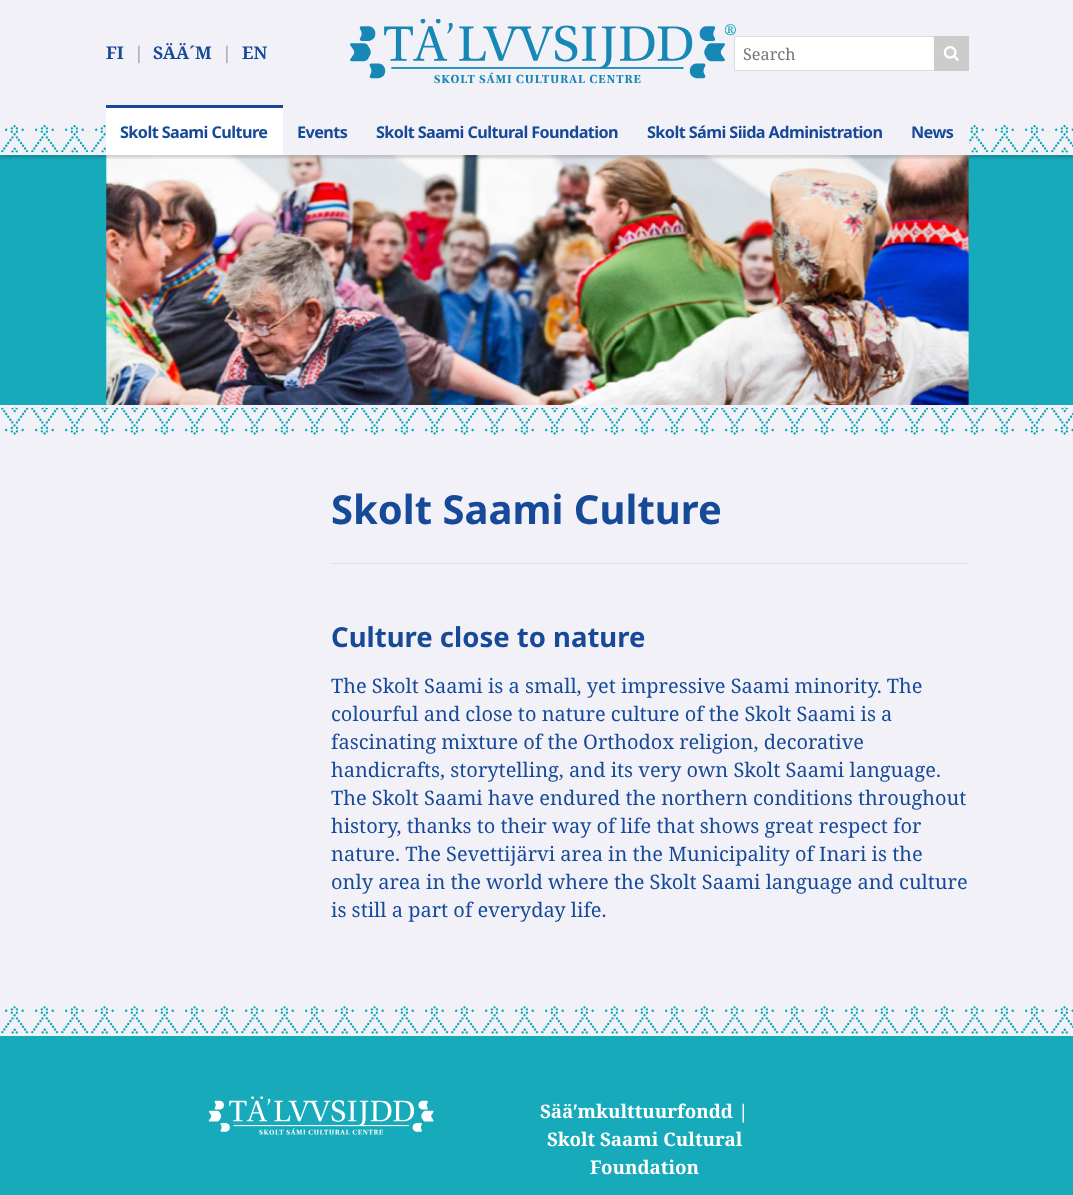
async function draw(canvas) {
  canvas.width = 1073
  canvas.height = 1195
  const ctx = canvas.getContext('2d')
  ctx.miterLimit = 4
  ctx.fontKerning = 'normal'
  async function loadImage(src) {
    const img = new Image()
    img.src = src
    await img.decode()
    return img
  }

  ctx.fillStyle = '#f3f1f8'
  ctx.fillRect(0, 0, 1073, 1195)
  ctx.drawImage(await loadImage('image0.png'), 350, 19, 375, 65)
  ctx.font = '15px Noto Serif'
  ctx.fillStyle = '#16aaba'
  ctx.fillText('®', 724, 35)
  ctx.font = 'bold 17.5px Noto Serif'
  ctx.fillStyle = '#164a98'
  ctx.fillText('FI', 106, 59)
  ctx.font = '17.5px Noto Serif'
  ctx.fillStyle = '#929195'
  ctx.fillText('|', 134, 59)
  ctx.font = 'bold 17.5px Noto Serif'
  ctx.fillStyle = '#164a98'
  ctx.fillText('SÄÄ´M', 153, 59)
  ctx.font = '17.5px Noto Serif'
  ctx.fillStyle = '#929195'
  ctx.fillText('|', 222, 59)
  ctx.font = 'bold 17.5px Noto Serif'
  ctx.fillStyle = '#164a98'
  ctx.fillText('EN', 242, 59)
  ctx.fillStyle = '#fff'
  ctx.fillRect(735, 37, 199, 33)
  ctx.fillStyle = '#ddd'
  ctx.fillRect(734, 36, 200, 1)
  ctx.fillRect(734, 70, 200, 1)
  ctx.fillRect(734, 36, 1, 35)
  ctx.font = '16.25px Noto Serif'
  ctx.fillStyle = '#757575'
  ctx.fillText('Search', 743, 60)
  ctx.fillStyle = '#ccc'
  ctx.fillRect(934, 36, 35, 35)
  ctx.drawImage(await loadImage('image1.png'), 943, 46, 16, 15)
  ctx.fillStyle = '#16aaba'
  ctx.fillRect(0, 155, 1073, 250)
  ctx.drawImage(await loadImage('image3.png'), 106, 155, 863, 250)
  ctx.fillStyle = '#00000026'
  ctx.filter = 'blur(1px)'
  ctx.beginPath()
  ctx.rect(0, 108, 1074, 50)
  ctx.fill()
  ctx.filter = 'none'
  ctx.fillStyle = '#f3f1f8'
  ctx.fillRect(0, 107, 1073, 48)
  ctx.drawImage(await loadImage('image2.png'), 1, 125, 1072, 28)
  ctx.fillStyle = '#fff'
  ctx.fillRect(106, 108, 177, 47)
  ctx.fillStyle = '#164a98'
  ctx.fillRect(106, 105, 177, 3)
  ctx.letterSpacing = '-0.6px'
  ctx.font = 'bold 16.25px Noto Sans'
  ctx.fillText('Skolt Saami Culture', 120, 138)
  ctx.fillStyle = '#f3f1f8'
  ctx.fillRect(283, 125, 76, 28)
  ctx.fillStyle = '#164a98'
  ctx.fillText('Events', 297, 138)
  ctx.fillStyle = '#f3f1f8'
  ctx.fillRect(361, 125, 608, 28)
  ctx.fillStyle = '#164a98'
  ctx.fillText('Skolt Saami Cultural Foundation', 376, 138)
  ctx.fillText('Skolt Sámi Siida Administration', 647, 138)
  ctx.fillText('News', 911, 138)
  ctx.drawImage(await loadImage('image4.png'), 1, 407, 1072, 28)
  ctx.letterSpacing = '0px'
  ctx.font = 'bold 40px Noto Sans'
  ctx.fillText('Skolt Saami Culture', 331, 524)
  ctx.fillStyle = '#ddd'
  ctx.fillRect(331, 563, 638, 1)
  ctx.font = 'bold 27.5px Noto Sans'
  ctx.fillStyle = '#164a98'
  ctx.fillText('Culture close to nature', 331, 647)
  ctx.font = '20px Noto Serif'
  ctx.fillText('The Skolt Saami is a small, yet impressive Saami minority. The', 331, 693)
  ctx.fillText('colourful and close to nature culture of the Skolt Saami is a', 331, 721)
  ctx.fillText('fascinating mixture of the Orthodox religion, decorative', 331, 749)
  ctx.fillText('handicrafts, storytelling, and its very own Skolt Saami language.', 331, 777)
  ctx.fillText('The Skolt Saami have endured the northern conditions throughout', 331, 805)
  ctx.fillText('history, thanks to their way of life that shows great respect for', 331, 833)
  ctx.fillText('nature. The Sevettijärvi area in the Municipality of Inari is the', 331, 861)
  ctx.fillText('only area in the world where the Skolt Saami language and culture', 331, 889)
  ctx.fillText('is still a part of everyday life.', 331, 917)
  ctx.drawImage(await loadImage('image5.png'), 1, 1006, 1072, 28)
  ctx.fillStyle = '#16aaba'
  ctx.fillRect(0, 1036, 1073, 159)
  ctx.drawImage(await loadImage('image6.png'), 209, 1096, 225, 39)
  ctx.font = 'bold 18.75px Noto Serif'
  ctx.fillStyle = '#fff'
  ctx.fillText('Sääʹmkulttuurfondd |', 540, 1118)
  ctx.fillText('Skolt Saami Cultural', 547, 1146)
  ctx.fillText('Foundation', 590, 1174)
}

draw(document.querySelector('canvas'))
